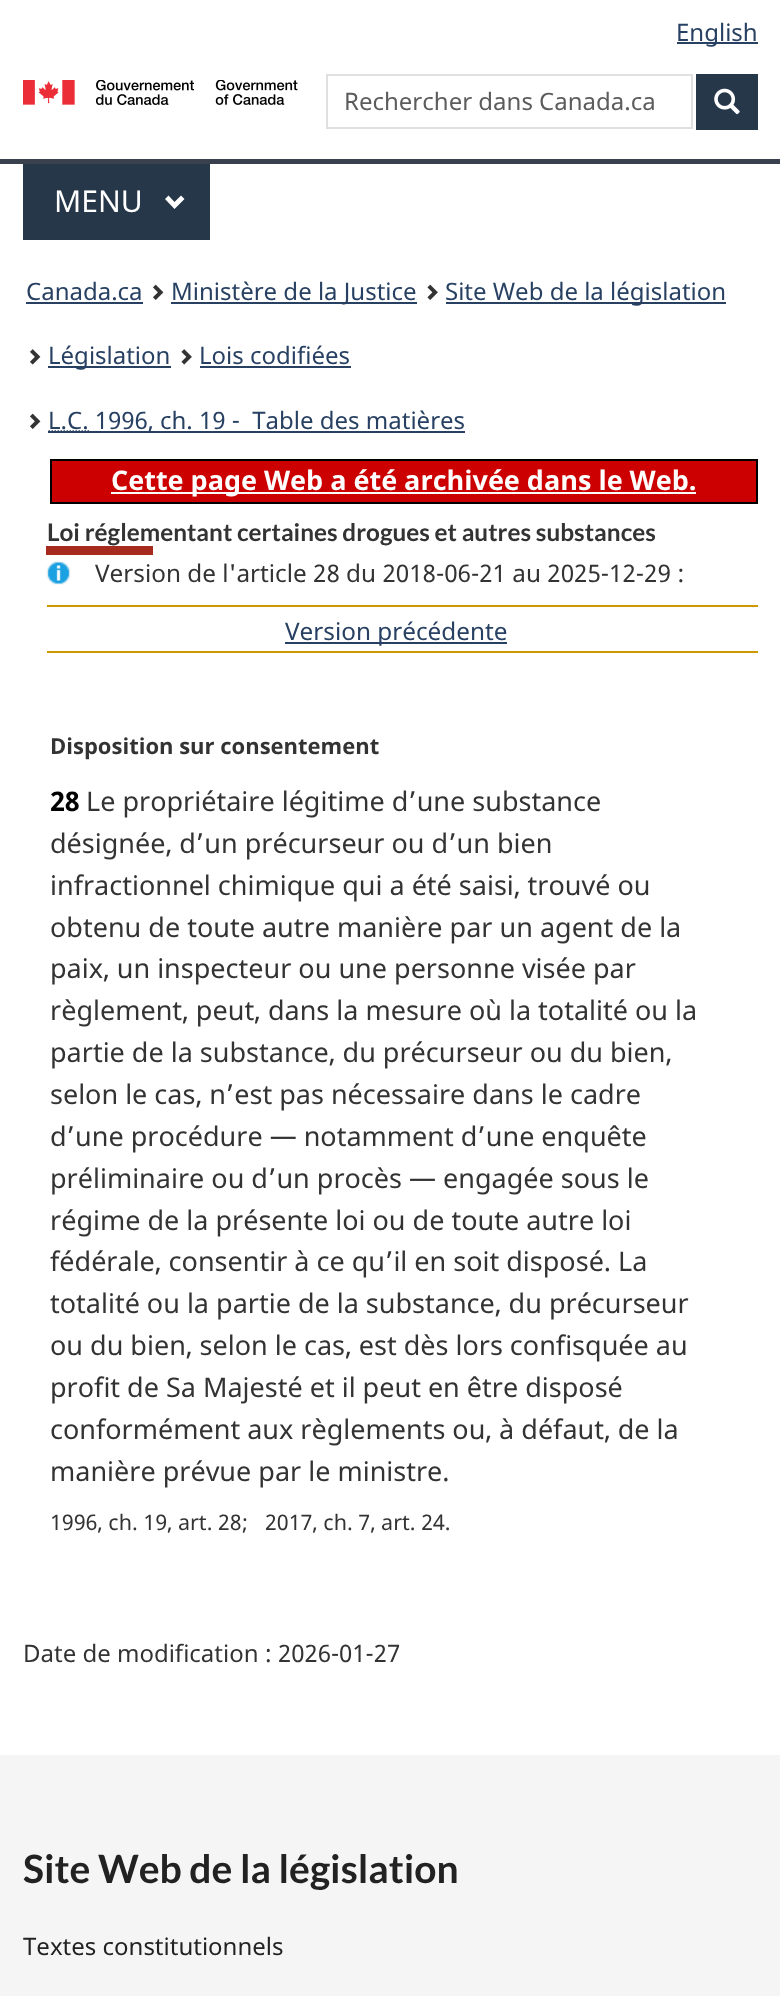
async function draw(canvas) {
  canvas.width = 780
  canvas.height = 1996
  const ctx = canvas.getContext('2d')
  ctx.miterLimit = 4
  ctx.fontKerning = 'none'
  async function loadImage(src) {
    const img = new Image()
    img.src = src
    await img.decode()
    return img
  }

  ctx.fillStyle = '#fff'
  ctx.fillRect(0, 0, 780, 1996)
  ctx.fillStyle = '#284162'
  ctx.fillRect(677, 42, 81, 2)
  ctx.font = '24px Noto Sans'
  ctx.fillText('English', 676, 41)
  ctx.drawImage(await loadImage('image0.png'), 23, 80, 275, 25)
  ctx.strokeStyle = '#e0e0e0'
  ctx.lineWidth = 2
  ctx.strokeRect(327, 75, 365, 53)
  ctx.fillStyle = '#5c5c5c'
  ctx.fillText('Rechercher dans Canada.ca', 344, 110)
  ctx.fillStyle = '#26374a'
  ctx.fillRect(696, 74, 62, 56)
  ctx.drawImage(await loadImage('image1.png'), 714, 88, 26, 27)
  ctx.fillStyle = '#38414d'
  ctx.fillRect(0, 159, 780, 5)
  ctx.fillStyle = '#26374a'
  ctx.fillRect(23, 164, 187, 76)
  ctx.font = '30px Noto Sans'
  ctx.fillStyle = '#fff'
  ctx.fillText('MENU', 54, 212)
  ctx.beginPath()
  ctx.moveTo(184.5, 199)
  ctx.lineTo(174.5, 209)
  ctx.lineTo(165, 199)
  ctx.lineTo(168.5, 195.5)
  ctx.lineTo(174.5, 202)
  ctx.lineTo(181, 195.5)
  ctx.closePath()
  ctx.fill()
  ctx.font = '24px Noto Sans'
  ctx.fillStyle = '#284162'
  ctx.fillText('Canada.ca', 26, 300)
  ctx.fillRect(26, 302, 117, 2)
  ctx.drawImage(await loadImage('image2.png'), 153, 284, 11, 16)
  ctx.fillRect(171, 302, 246, 2)
  ctx.fillText('Ministère de la Justice', 171, 300)
  ctx.drawImage(await loadImage('image3.png'), 427, 284, 11, 16)
  ctx.fillRect(446, 302, 280, 2)
  ctx.fillText('Site Web de la législation', 445, 300)
  ctx.drawImage(await loadImage('image4.png'), 30, 349, 11, 16)
  ctx.fillRect(48, 366, 123, 2)
  ctx.fillText('Législation', 48, 364)
  ctx.drawImage(await loadImage('image5.png'), 181, 349, 11, 16)
  ctx.fillText('Lois codifiées', 199, 364)
  ctx.fillRect(200, 366, 151, 2)
  ctx.drawImage(await loadImage('image2.png'), 30, 413, 11, 16)
  ctx.beginPath()
  ctx.moveTo(48.5, 431)
  ctx.lineTo(89, 431)
  ctx.strokeStyle = '#284162'
  ctx.lineWidth = 1.5
  ctx.setLineDash([1.5, 1.5])
  ctx.stroke()
  ctx.fillRect(48, 431, 417, 2)
  ctx.fillText('L.C. 1996, ch. 19 -  Table des matières', 48, 429)
  ctx.fillStyle = '#c00'
  ctx.beginPath()
  ctx.rect(51, 460, 706, 43)
  ctx.fill()
  ctx.strokeStyle = '#000'
  ctx.lineWidth = 2
  ctx.setLineDash([])
  ctx.stroke()
  ctx.fillStyle = '#fff'
  ctx.fillRect(111, 492, 585, 2)
  ctx.font = 'bold 27px Noto Sans'
  ctx.fillText('Cette page Web a été archivée dans le Web.', 111, 490)
  ctx.fillStyle = '#a62a1e'
  ctx.fillRect(46, 546, 107, 9)
  ctx.font = 'bold 24.3px Lato'
  ctx.fillStyle = '#333'
  ctx.fillText('Loi réglementant certaines drogues et autres substances', 47, 541)
  ctx.drawImage(await loadImage('image6.png'), 46, 561, 25, 24)
  ctx.font = '24.3px Noto Sans'
  ctx.fillText('Version de l\'article 28 du 2018-06-21 au 2025-12-29 :', 95, 582)
  ctx.fillStyle = '#c90'
  ctx.fillRect(47, 605, 711, 2)
  ctx.fillRect(47, 651, 711, 2)
  ctx.fillStyle = '#284162'
  ctx.fillRect(285, 642, 222, 2)
  ctx.fillText('Version précédente', 285, 640)
  ctx.font = 'bold 22px Noto Sans'
  ctx.fillStyle = '#333'
  ctx.fillText('Disposition sur consentement', 50, 754)
  ctx.font = 'bold 27px Noto Sans'
  ctx.fillStyle = '#000'
  ctx.fillText('28', 50, 811)
  ctx.font = '27px Noto Sans'
  ctx.fillStyle = '#333'
  ctx.fillText('Le propriétaire légitime d’une substance', 86, 811)
  ctx.fillText('désignée, d’un précurseur ou d’un bien', 50, 853)
  ctx.fillText('infractionnel chimique qui a été saisi, trouvé ou', 50, 895)
  ctx.fillText('obtenu de toute autre manière par un agent de la', 50, 937)
  ctx.fillText('paix, un inspecteur ou une personne visée par', 50, 978)
  ctx.fillText('règlement, peut, dans la mesure où la totalité ou la', 50, 1020)
  ctx.fillText('partie de la substance, du précurseur ou du bien,', 50, 1062)
  ctx.fillText('selon le cas, n’est pas nécessaire dans le cadre', 50, 1104)
  ctx.fillText('d’une procédure — notamment d’une enquête', 50, 1146)
  ctx.fillText('préliminaire ou d’un procès — engagée sous le', 50, 1188)
  ctx.fillText('régime de la présente loi ou de toute autre loi', 50, 1230)
  ctx.fillText('fédérale, consentir à ce qu’il en soit disposé. La', 50, 1271)
  ctx.fillText('totalité ou la partie de la substance, du précurseur', 50, 1313)
  ctx.fillText('ou du bien, selon le cas, est dès lors confisquée au', 50, 1355)
  ctx.fillText('profit de Sa Majesté et il peut en être disposé', 50, 1397)
  ctx.fillText('conformément aux règlements ou, à défaut, de la', 50, 1439)
  ctx.fillText('manière prévue par le ministre.', 50, 1481)
  ctx.font = '21.5px Noto Sans'
  ctx.fillText('1996, ch. 19, art. 28;', 50, 1530)
  ctx.fillText('2017, ch. 7, art. 24.', 265, 1530)
  ctx.font = '24px Noto Sans'
  ctx.fillText('Date de modification : 2026-01-27', 23, 1662)
  ctx.fillStyle = '#f5f5f5'
  ctx.fillRect(0, 1755, 780, 241)
  ctx.font = 'bold 39px Lato'
  ctx.fillStyle = '#222'
  ctx.fillText('Site Web de la législation', 23, 1883)
  ctx.font = '24px Noto Sans'
  ctx.fillText('Textes constitutionnels', 23, 1955)
}

draw(document.querySelector('canvas'))
